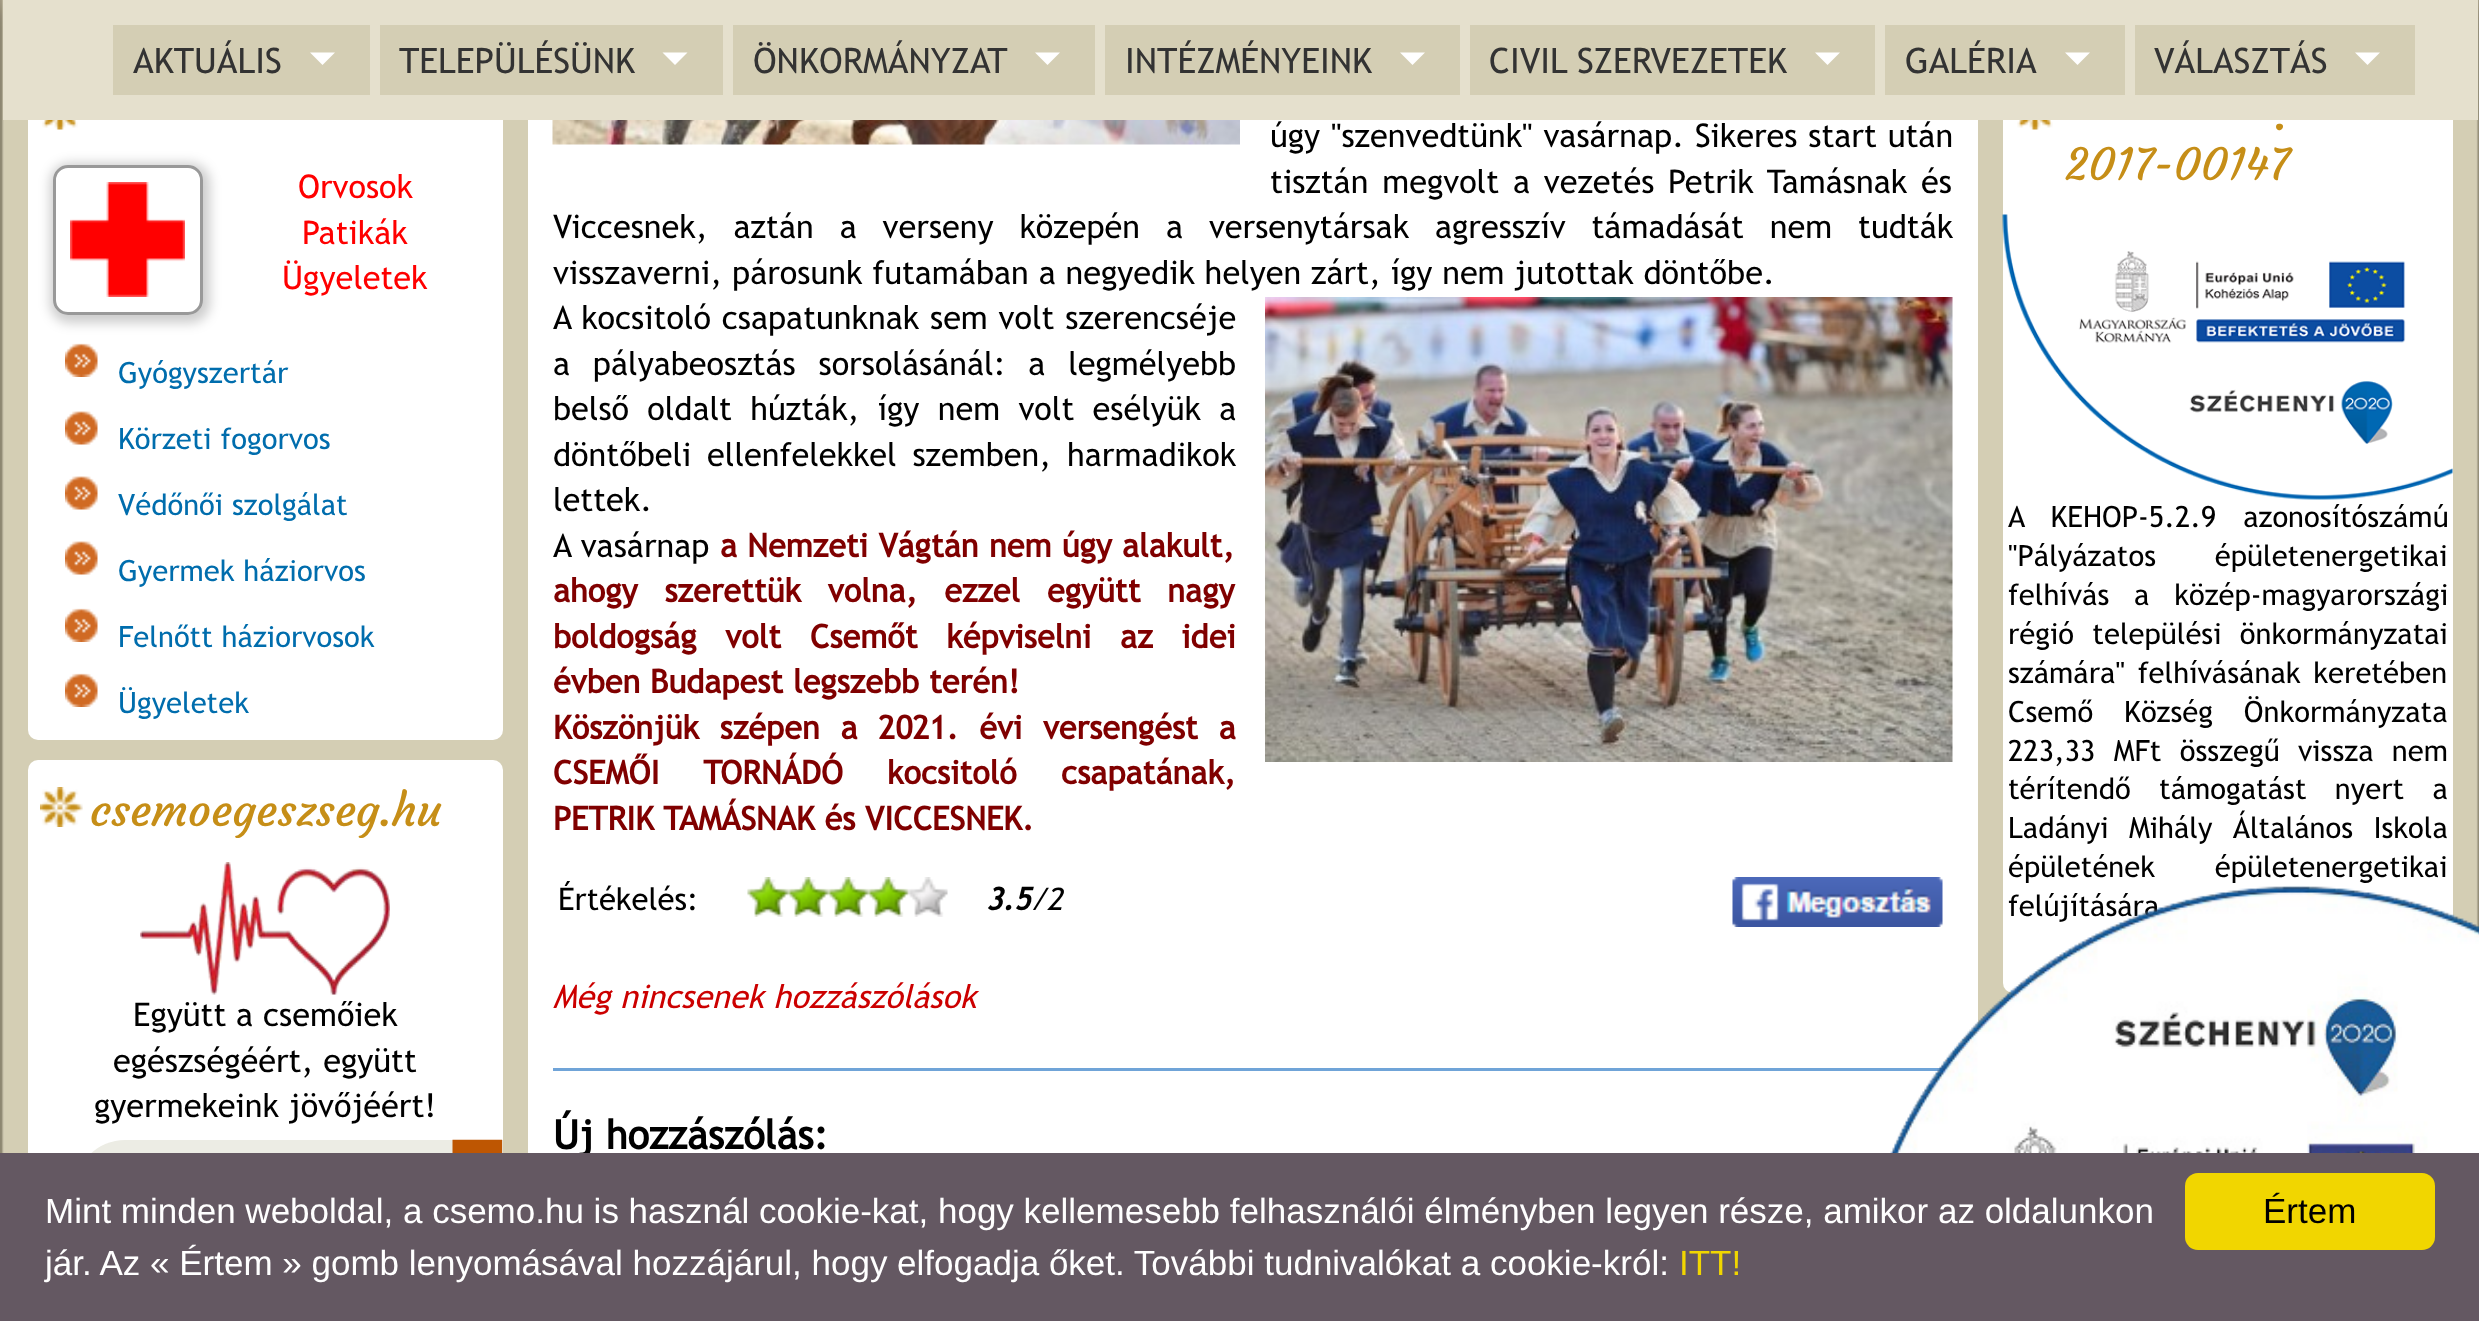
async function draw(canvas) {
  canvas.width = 2479
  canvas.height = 1321
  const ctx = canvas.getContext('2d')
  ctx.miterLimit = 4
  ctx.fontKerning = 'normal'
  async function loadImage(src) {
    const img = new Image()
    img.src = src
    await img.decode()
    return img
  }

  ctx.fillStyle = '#fff'
  ctx.fillRect(0, 0, 2479, 1321)
  ctx.drawImage(await loadImage('image0.png'), 0, 0, 2479, 1153)
  ctx.beginPath()
  ctx.roundRect(28, 63, 475, 677, 10)
  ctx.fill()
  ctx.beginPath()
  ctx.roundRect(2003, 63, 450, 930, 10)
  ctx.fill()
  ctx.fillStyle = '#e5e0cd'
  ctx.fillRect(3, 0, 2475, 120)
  ctx.fillStyle = '#d4ceb4'
  ctx.fillRect(113, 25, 257, 70)
  ctx.font = '35px Trebuchet MS'
  ctx.fillStyle = '#333'
  ctx.fillText('AKTUÁLIS', 133, 73)
  ctx.fillStyle = '#fff'
  ctx.beginPath()
  ctx.moveTo(310, 52.5)
  ctx.lineTo(335, 52.5)
  ctx.lineTo(322.5, 65)
  ctx.closePath()
  ctx.fill()
  ctx.fillStyle = '#d4ceb4'
  ctx.fillRect(380, 25, 343, 70)
  ctx.fillStyle = '#333'
  ctx.fillText('TELEPÜLÉSÜNK', 399, 73)
  ctx.fillStyle = '#fff'
  ctx.beginPath()
  ctx.moveTo(662.5, 52.5)
  ctx.lineTo(687.5, 52.5)
  ctx.lineTo(675, 65)
  ctx.closePath()
  ctx.fill()
  ctx.fillStyle = '#d4ceb4'
  ctx.fillRect(733, 25, 362, 70)
  ctx.fillStyle = '#333'
  ctx.fillText('ÖNKORMÁNYZAT', 753, 73)
  ctx.fillStyle = '#fff'
  ctx.beginPath()
  ctx.moveTo(1035, 52.5)
  ctx.lineTo(1060, 52.5)
  ctx.lineTo(1047.5, 65)
  ctx.closePath()
  ctx.fill()
  ctx.fillStyle = '#d4ceb4'
  ctx.fillRect(1105, 25, 355, 70)
  ctx.fillStyle = '#333'
  ctx.fillText('INTÉZMÉNYEINK', 1125, 73)
  ctx.fillStyle = '#fff'
  ctx.beginPath()
  ctx.moveTo(1400, 52.5)
  ctx.lineTo(1425, 52.5)
  ctx.lineTo(1412.5, 65)
  ctx.closePath()
  ctx.fill()
  ctx.fillStyle = '#d4ceb4'
  ctx.fillRect(1470, 25, 405, 70)
  ctx.fillStyle = '#333'
  ctx.fillText('CIVIL SZERVEZETEK', 1489, 73)
  ctx.fillStyle = '#fff'
  ctx.beginPath()
  ctx.moveTo(1815, 52.5)
  ctx.lineTo(1840, 52.5)
  ctx.lineTo(1827.5, 65)
  ctx.closePath()
  ctx.fill()
  ctx.fillStyle = '#d4ceb4'
  ctx.fillRect(1885, 25, 240, 70)
  ctx.fillStyle = '#333'
  ctx.fillText('GALÉRIA', 1905, 73)
  ctx.fillStyle = '#fff'
  ctx.beginPath()
  ctx.moveTo(2065, 52.5)
  ctx.lineTo(2090, 52.5)
  ctx.lineTo(2077.5, 65)
  ctx.closePath()
  ctx.fill()
  ctx.fillStyle = '#d4ceb4'
  ctx.fillRect(2135, 25, 280, 70)
  ctx.fillStyle = '#333'
  ctx.fillText('VÁLASZTÁS', 2154, 73)
  ctx.fillStyle = '#fff'
  ctx.beginPath()
  ctx.moveTo(2355, 52.5)
  ctx.lineTo(2380, 52.5)
  ctx.lineTo(2367.5, 65)
  ctx.closePath()
  ctx.fill()
  ctx.drawImage(await loadImage('image1.png'), 42, 120, 36, 10)
  ctx.fillStyle = '#00000033'
  ctx.filter = 'blur(6px)'
  ctx.beginPath()
  ctx.roundRect(50, 163, 160, 160, 20)
  ctx.fill()
  ctx.filter = 'none'
  ctx.fillStyle = '#fff'
  ctx.beginPath()
  ctx.roundRect(53, 165, 150, 150, 15)
  ctx.fill()
  ctx.beginPath()
  ctx.roundRect(54.5, 166.5, 147, 147, 13.5)
  ctx.strokeStyle = '#00000066'
  ctx.lineWidth = 3
  ctx.stroke()
  ctx.drawImage(await loadImage('image2.png'), 70, 182, 115, 115)
  ctx.font = '32.5px Trebuchet MS'
  ctx.fillStyle = '#f00'
  ctx.fillText('Orvosok', 298, 198)
  ctx.fillText('Patikák', 302, 244)
  ctx.fillText('Ügyeletek', 282, 289)
  ctx.drawImage(await loadImage('image3.png'), 65, 343, 33, 34)
  ctx.font = '29.25px Trebuchet MS'
  ctx.fillStyle = '#006dad'
  ctx.fillText('Gyógyszertár', 118, 383)
  ctx.drawImage(await loadImage('image4.png'), 65, 411, 33, 34)
  ctx.fillText('Körzeti fogorvos', 118, 449)
  ctx.drawImage(await loadImage('image5.png'), 65, 476, 33, 34)
  ctx.fillText('Védőnői szolgálat', 118, 515)
  ctx.drawImage(await loadImage('image5.png'), 65, 541, 33, 34)
  ctx.fillText('Gyermek háziorvos', 118, 581)
  ctx.drawImage(await loadImage('image3.png'), 65, 608, 33, 34)
  ctx.fillText('Felnőtt háziorvosok', 118, 647)
  ctx.drawImage(await loadImage('image3.png'), 65, 673, 33, 34)
  ctx.fillText('Ügyeletek', 118, 713)
  ctx.fillStyle = '#fff'
  ctx.beginPath()
  ctx.roundRect(28, 760, 475, 430, 10)
  ctx.fill()
  ctx.drawImage(await loadImage('image6.png'), 40, 787, 43, 40)
  ctx.font = '45px Courgette'
  ctx.fillStyle = '#c68e17'
  ctx.fillText('csemoegeszseg.hu', 90, 826)
  ctx.drawImage(await loadImage('image7.png'), 140, 862, 250, 133)
  ctx.font = '32.5px Trebuchet MS'
  ctx.fillStyle = '#000'
  ctx.fillText('Együtt a csemőiek', 133, 1026)
  ctx.fillText('egészségéért, együtt', 113, 1072)
  ctx.fillText('gyermekeink jövőjéért!', 94, 1117)
  ctx.fillStyle = '#ecece4'
  ctx.beginPath()
  ctx.roundRect(75, 1140, 428, 50, [50, 0, 0, 0])
  ctx.fill()
  ctx.drawImage(await loadImage('image8.png'), 452, 1139, 51, 14)
  ctx.fillStyle = '#fff'
  ctx.fillRect(528, 120, 1450, 1033)
  ctx.drawImage(await loadImage('image9.png'), 552, 120, 688, 25)
  ctx.wordSpacing = '1px'
  ctx.fillStyle = '#000'
  ctx.fillText('úgy "szenvedtünk" vasárnap. Sikeres start után', 1270, 147)
  ctx.wordSpacing = '4px'
  ctx.fillText('tisztán megvolt a vezetés Petrik Tamásnak és', 1270, 193)
  ctx.wordSpacing = '16.1px'
  ctx.fillText('Viccesnek, aztán a verseny közepén a versenytársak agresszív támadását nem tudták', 553, 238)
  ctx.wordSpacing = '0px'
  ctx.fillText('visszaverni, párosunk futamában a negyedik helyen zárt, így nem jutottak döntőbe.', 553, 284)
  ctx.drawImage(await loadImage('image10.png'), 1265, 297, 688, 465)
  ctx.wordSpacing = '1px'
  ctx.fillText('A kocsitoló csapatunknak sem volt szerencséje', 553, 329)
  ctx.wordSpacing = '13px'
  ctx.fillText('a pályabeosztás sorsolásánál: a legmélyebb', 553, 375)
  ctx.wordSpacing = '8.5px'
  ctx.fillText('belső oldalt húzták, így nem volt esélyük a', 553, 420)
  ctx.wordSpacing = '6px'
  ctx.fillText('döntőbeli ellenfelekkel szemben, harmadikok', 553, 466)
  ctx.wordSpacing = '0px'
  ctx.fillText('lettek.', 553, 511)
  ctx.wordSpacing = '0.5px'
  ctx.fillText('A vasárnap', 553, 557)
  ctx.font = 'bold 32.5px Trebuchet MS'
  ctx.fillStyle = '#800000'
  ctx.fillText('a Nemzeti Vágtán nem úgy alakult,', 720, 557)
  ctx.wordSpacing = '17px'
  ctx.fillText('ahogy szerettük volna, ezzel együtt nagy', 553, 602)
  ctx.wordSpacing = '19px'
  ctx.fillText('boldogság volt Csemőt képviselni az idei', 553, 648)
  ctx.wordSpacing = '0px'
  ctx.fillText('évben Budapest legszebb terén!', 553, 693)
  ctx.wordSpacing = '11px'
  ctx.fillText('Köszönjük szépen a 2021. évi versengést a', 553, 739)
  ctx.wordSpacing = '34.5px'
  ctx.fillText('CSEMŐI TORNÁDÓ kocsitoló csapatának,', 553, 784)
  ctx.wordSpacing = '0px'
  ctx.fillText('PETRIK TAMÁSNAK és VICCESNEK.', 553, 830)
  ctx.font = '31px Trebuchet MS'
  ctx.fillStyle = '#000'
  ctx.fillText('Értékelés:', 558, 910)
  ctx.drawImage(await loadImage('image11.png'), 747, 877, 201, 40)
  ctx.font = 'italic bold 31px Trebuchet MS'
  ctx.fillText('3.5', 986, 910)
  ctx.font = 'italic 31px Trebuchet MS'
  ctx.fillText('/2', 1030, 910)
  ctx.drawImage(await loadImage('image12.png'), 1732, 877, 211, 50)
  ctx.font = 'italic 32.5px Trebuchet MS'
  ctx.fillStyle = '#c00'
  ctx.fillText('Még nincsenek hozzászólások', 553, 1008)
  ctx.fillStyle = '#70a4d8'
  ctx.fillRect(553, 1068, 1390, 3)
  ctx.font = 'bold 40px Trebuchet MS'
  ctx.fillStyle = '#000'
  ctx.fillText('Új hozzászólás:', 553, 1149)
  ctx.drawImage(await loadImage('image13.png'), 2017, 120, 36, 10)
  ctx.font = '43.75px Courgette'
  ctx.fillStyle = '#c68e17'
  ctx.fillText('.', 2275, 130)
  ctx.fillText('2017-00147', 2065, 180)
  ctx.drawImage(await loadImage('image14.png'), 2002, 214, 451, 286)
  ctx.wordSpacing = '18px'
  ctx.font = '29.25px Trebuchet MS'
  ctx.fillStyle = '#000'
  ctx.fillText('A KEHOP-5.2.9 azonosítószámú', 2008, 527)
  ctx.wordSpacing = '50px'
  ctx.fillText('"Pályázatos épületenergetikai', 2008, 566)
  ctx.wordSpacing = '16px'
  ctx.fillText('felhívás a közép-magyarországi', 2008, 605)
  ctx.wordSpacing = '9.5px'
  ctx.fillText('régió települési önkormányzatai', 2008, 644)
  ctx.wordSpacing = '4px'
  ctx.fillText('számára" felhívásának keretében', 2008, 683)
  ctx.wordSpacing = '22px'
  ctx.fillText('Csemő Község Önkormányzata', 2008, 722)
  ctx.wordSpacing = '9.5px'
  ctx.fillText('223,33 MFt összegű vissza nem', 2008, 761)
  ctx.wordSpacing = '19.5px'
  ctx.fillText('térítendő támogatást nyert a', 2008, 799)
  ctx.wordSpacing = '11.5px'
  ctx.fillText('Ladányi Mihály Általános Iskola', 2008, 838)
  ctx.wordSpacing = '51px'
  ctx.fillText('épületének épületenergetikai', 2008, 877)
  ctx.wordSpacing = '0px'
  ctx.fillText('felújítására', 2008, 916)
  ctx.drawImage(await loadImage('image15.png'), 1890, 885, 589, 268)
  ctx.fillStyle = '#645862'
  ctx.fillRect(0, 1153, 2479, 168)
  ctx.font = '35px Liberation Sans'
  ctx.fillStyle = '#fff'
  ctx.fillText('Mint minden weboldal, a csemo.hu is használ cookie-kat, hogy kellemesebb felhasználói élményben legyen része, amikor az oldalunkon', 45, 1223)
  ctx.fillText('jár. Az « Értem » gomb lenyomásával hozzájárul, hogy elfogadja őket. További tudnivalókat a cookie-król:', 45, 1275)
  ctx.fillStyle = '#f1d600'
  ctx.fillText('ITT!', 1679, 1275)
  ctx.beginPath()
  ctx.roundRect(2185, 1173, 250, 77, 13)
  ctx.fill()
  ctx.fillStyle = '#000'
  ctx.fillText('Értem', 2263, 1223)
}

draw(document.querySelector('canvas'))
